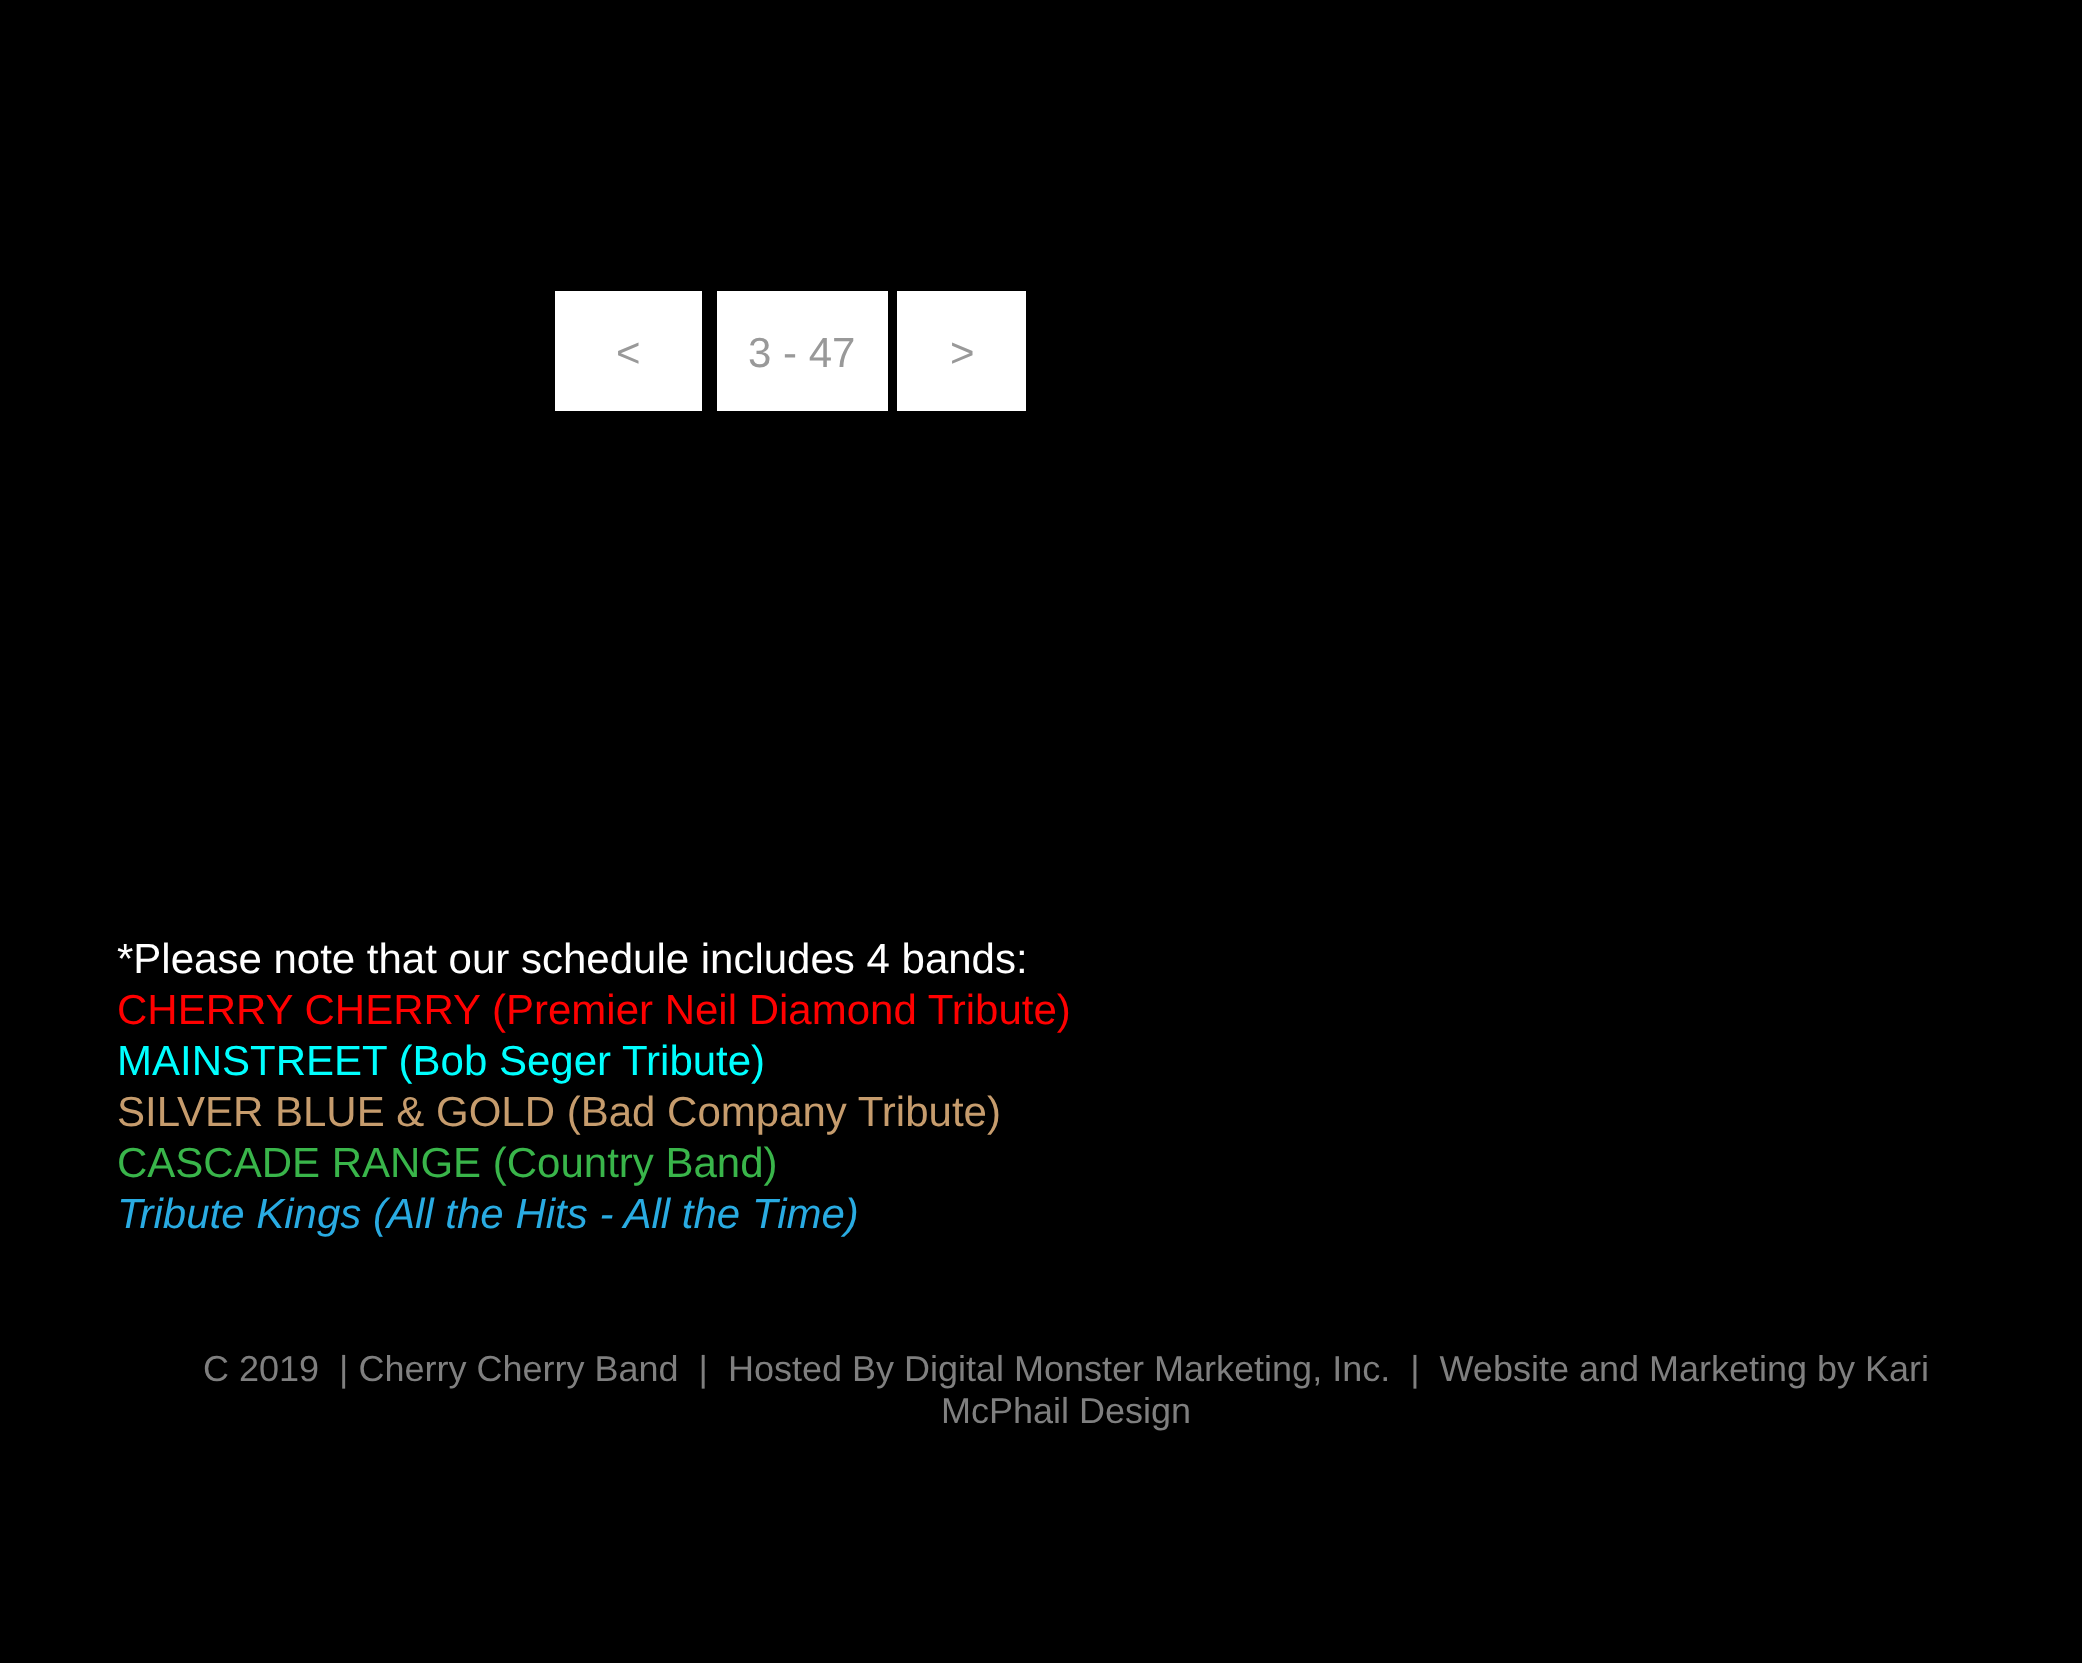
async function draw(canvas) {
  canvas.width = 2082
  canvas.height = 1663
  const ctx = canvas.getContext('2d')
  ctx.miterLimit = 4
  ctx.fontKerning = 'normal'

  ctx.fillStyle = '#000'
  ctx.fillRect(0, 0, 2082, 1663)
  ctx.fillStyle = '#fff'
  ctx.fillRect(555, 291, 147, 120)
  ctx.font = '42px Liberation Sans'
  ctx.fillStyle = '#999'
  ctx.fillText('<', 616, 367)
  ctx.fillStyle = '#fff'
  ctx.fillRect(717, 291, 171, 120)
  ctx.fillStyle = '#999'
  ctx.fillText('3 - 47', 748, 367)
  ctx.fillStyle = '#fff'
  ctx.fillRect(897, 291, 129, 120)
  ctx.fillStyle = '#999'
  ctx.fillText('>', 950, 367)
  ctx.fillStyle = '#fff'
  ctx.fillText('*Please note that our schedule includes 4 bands:', 117, 973)
  ctx.fillStyle = '#f00'
  ctx.fillText('CHERRY CHERRY (Premier Neil Diamond Tribute)', 117, 1024)
  ctx.fillStyle = '#0ff'
  ctx.fillText('MAINSTREET (Bob Seger Tribute)', 117, 1075)
  ctx.fillStyle = '#c69c6d'
  ctx.fillText('SILVER BLUE & GOLD (Bad Company Tribute)', 117, 1126)
  ctx.fillStyle = '#39b54a'
  ctx.fillText('CASCADE RANGE (Country Band)', 117, 1177)
  ctx.font = 'italic 42px Liberation Sans'
  ctx.fillStyle = '#29abe2'
  ctx.fillText('Tribute Kings (All the Hits - All the Time)', 117, 1228)
  ctx.font = '36px Liberation Sans'
  ctx.fillStyle = '#7f7f7f'
  ctx.fillText('C 2019  | Cherry Cherry Band  |  Hosted By Digital Monster Marketing, Inc.  |  Website and Marketing by Kari', 203, 1381)
  ctx.fillText('McPhail Design', 941, 1423)
}

draw(document.querySelector('canvas'))
